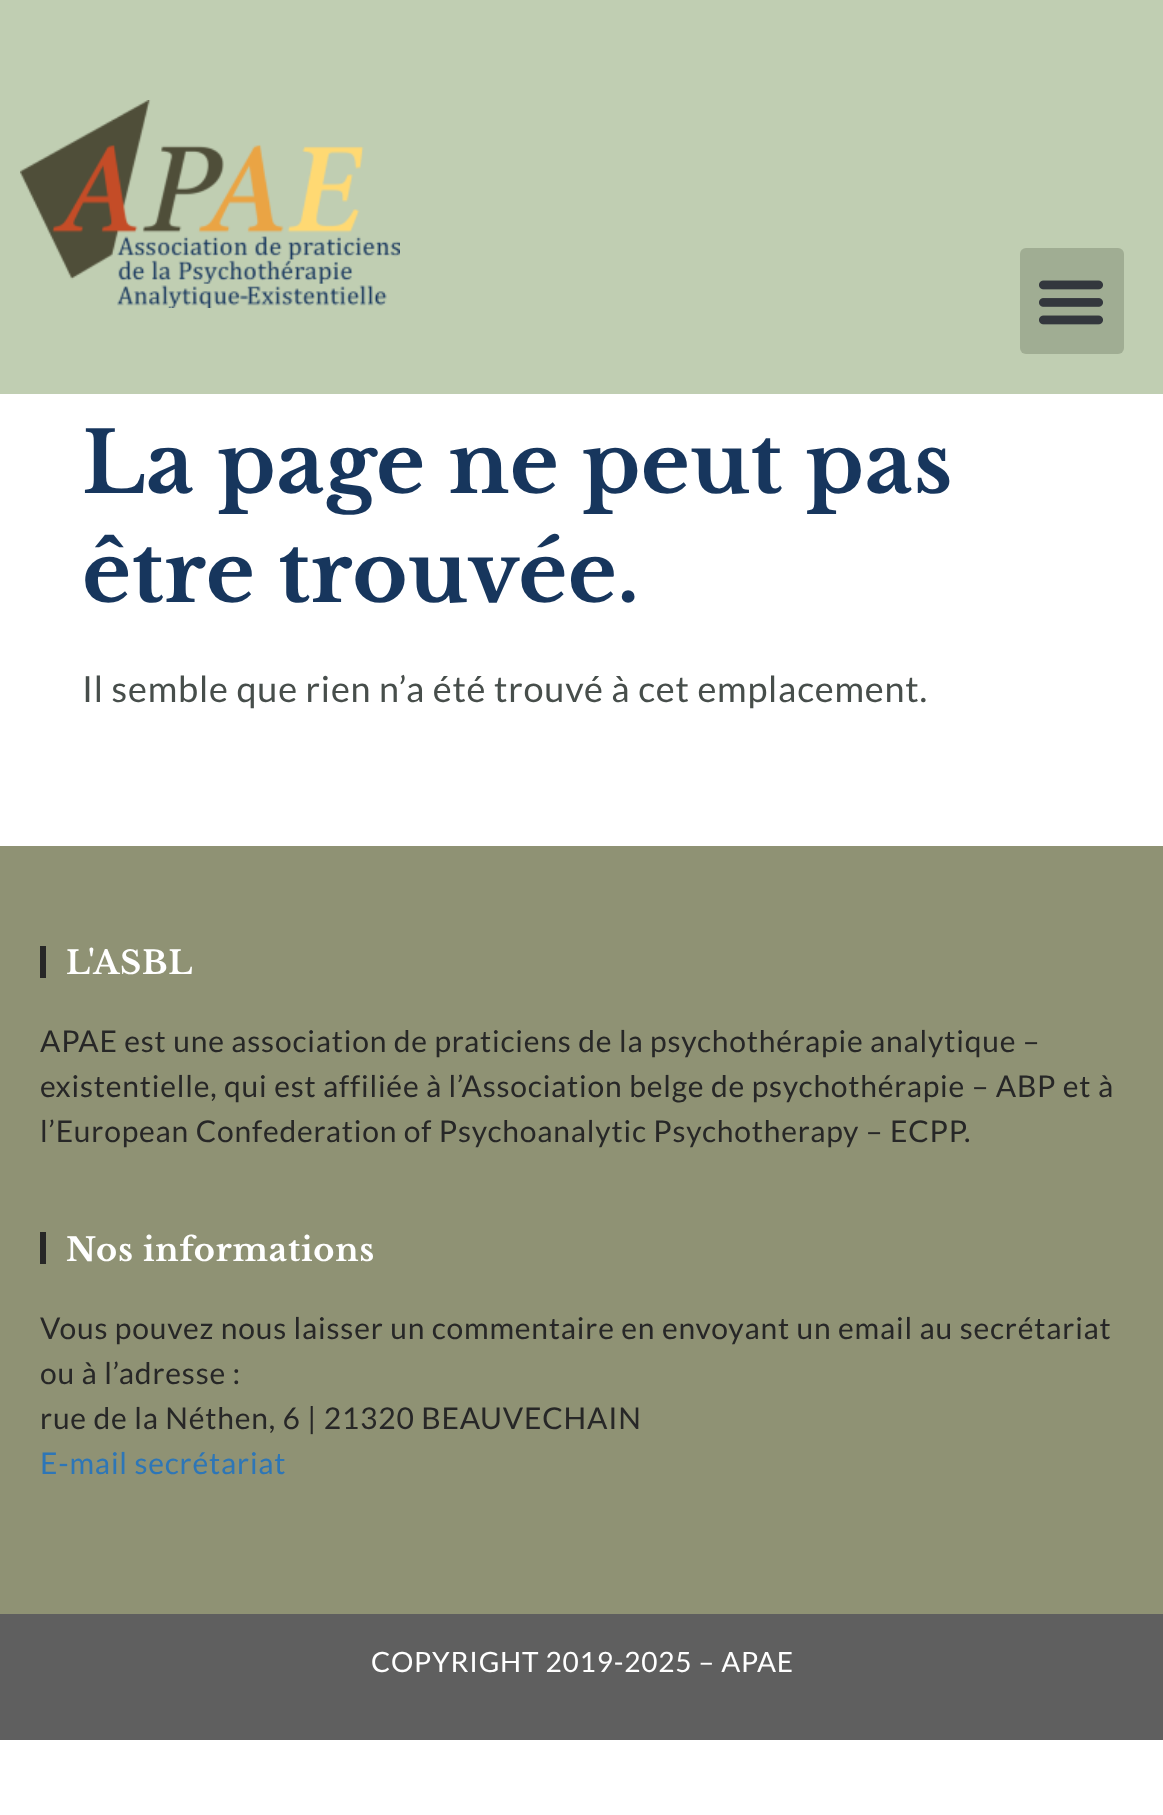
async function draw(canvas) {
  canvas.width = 1163
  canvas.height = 1815
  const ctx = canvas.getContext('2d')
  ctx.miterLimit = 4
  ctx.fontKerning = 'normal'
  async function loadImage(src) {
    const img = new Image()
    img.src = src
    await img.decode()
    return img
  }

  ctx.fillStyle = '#fff'
  ctx.fillRect(0, 0, 1163, 1815)
  ctx.fillStyle = '#c0ceb2'
  ctx.fillRect(0, 0, 1163, 394)
  ctx.drawImage(await loadImage('image0.png'), 20, 100, 380, 208)
  ctx.fillStyle = '#a0ad93'
  ctx.beginPath()
  ctx.roundRect(1020, 248, 104, 106, 6)
  ctx.fill()
  ctx.drawImage(await loadImage('image1.png'), 1039, 280, 64, 45)
  ctx.letterSpacing = '0.4px'
  ctx.font = 'bold 84px Libre Baskerville'
  ctx.fillStyle = '#17365d'
  ctx.fillText('La page ne peut pas', 82, 493)
  ctx.fillText('être trouvée.', 82, 602)
  ctx.letterSpacing = '0.8px'
  ctx.font = '36px Lato'
  ctx.fillStyle = '#474e4b'
  ctx.fillText('Il semble que rien n’a été trouvé à cet emplacement.', 82, 702)
  ctx.fillStyle = '#8f9274'
  ctx.fillRect(0, 846, 1163, 768)
  ctx.fillStyle = '#272727'
  ctx.fillRect(40, 946, 6, 32)
  ctx.font = 'bold 32px Libre Baskerville'
  ctx.fillStyle = '#fff'
  ctx.fillText('L\'ASBL', 66, 974)
  ctx.font = '30px Lato'
  ctx.fillStyle = '#272727'
  ctx.fillText('APAE est une association de praticiens de la psychothérapie analytique –', 40, 1052)
  ctx.fillText('existentielle, qui est affiliée à l’Association belge de psychothérapie – ABP et à', 40, 1097)
  ctx.fillText('l’European Confederation of Psychoanalytic Psychotherapy – ECPP.', 40, 1142)
  ctx.fillRect(40, 1232, 6, 32)
  ctx.font = 'bold 32px Libre Baskerville'
  ctx.fillStyle = '#fff'
  ctx.fillText('Nos informations', 66, 1261)
  ctx.font = '30px Lato'
  ctx.fillStyle = '#272727'
  ctx.fillText('Vous pouvez nous laisser un commentaire en envoyant un email au secrétariat', 40, 1339)
  ctx.fillText('ou à l’adresse :', 40, 1384)
  ctx.fillText('rue de la Néthen, 6 | 21320 BEAUVECHAIN', 40, 1429)
  ctx.fillStyle = '#2d76b7'
  ctx.fillText('E-mail secrétariat', 40, 1474)
  ctx.fillStyle = '#5f5f5f'
  ctx.fillRect(0, 1614, 1163, 126)
  ctx.font = '28px Lato'
  ctx.fillStyle = '#fff'
  ctx.fillText('COPYRIGHT 2019-2025 – APAE', 371, 1672)
}

draw(document.querySelector('canvas'))
